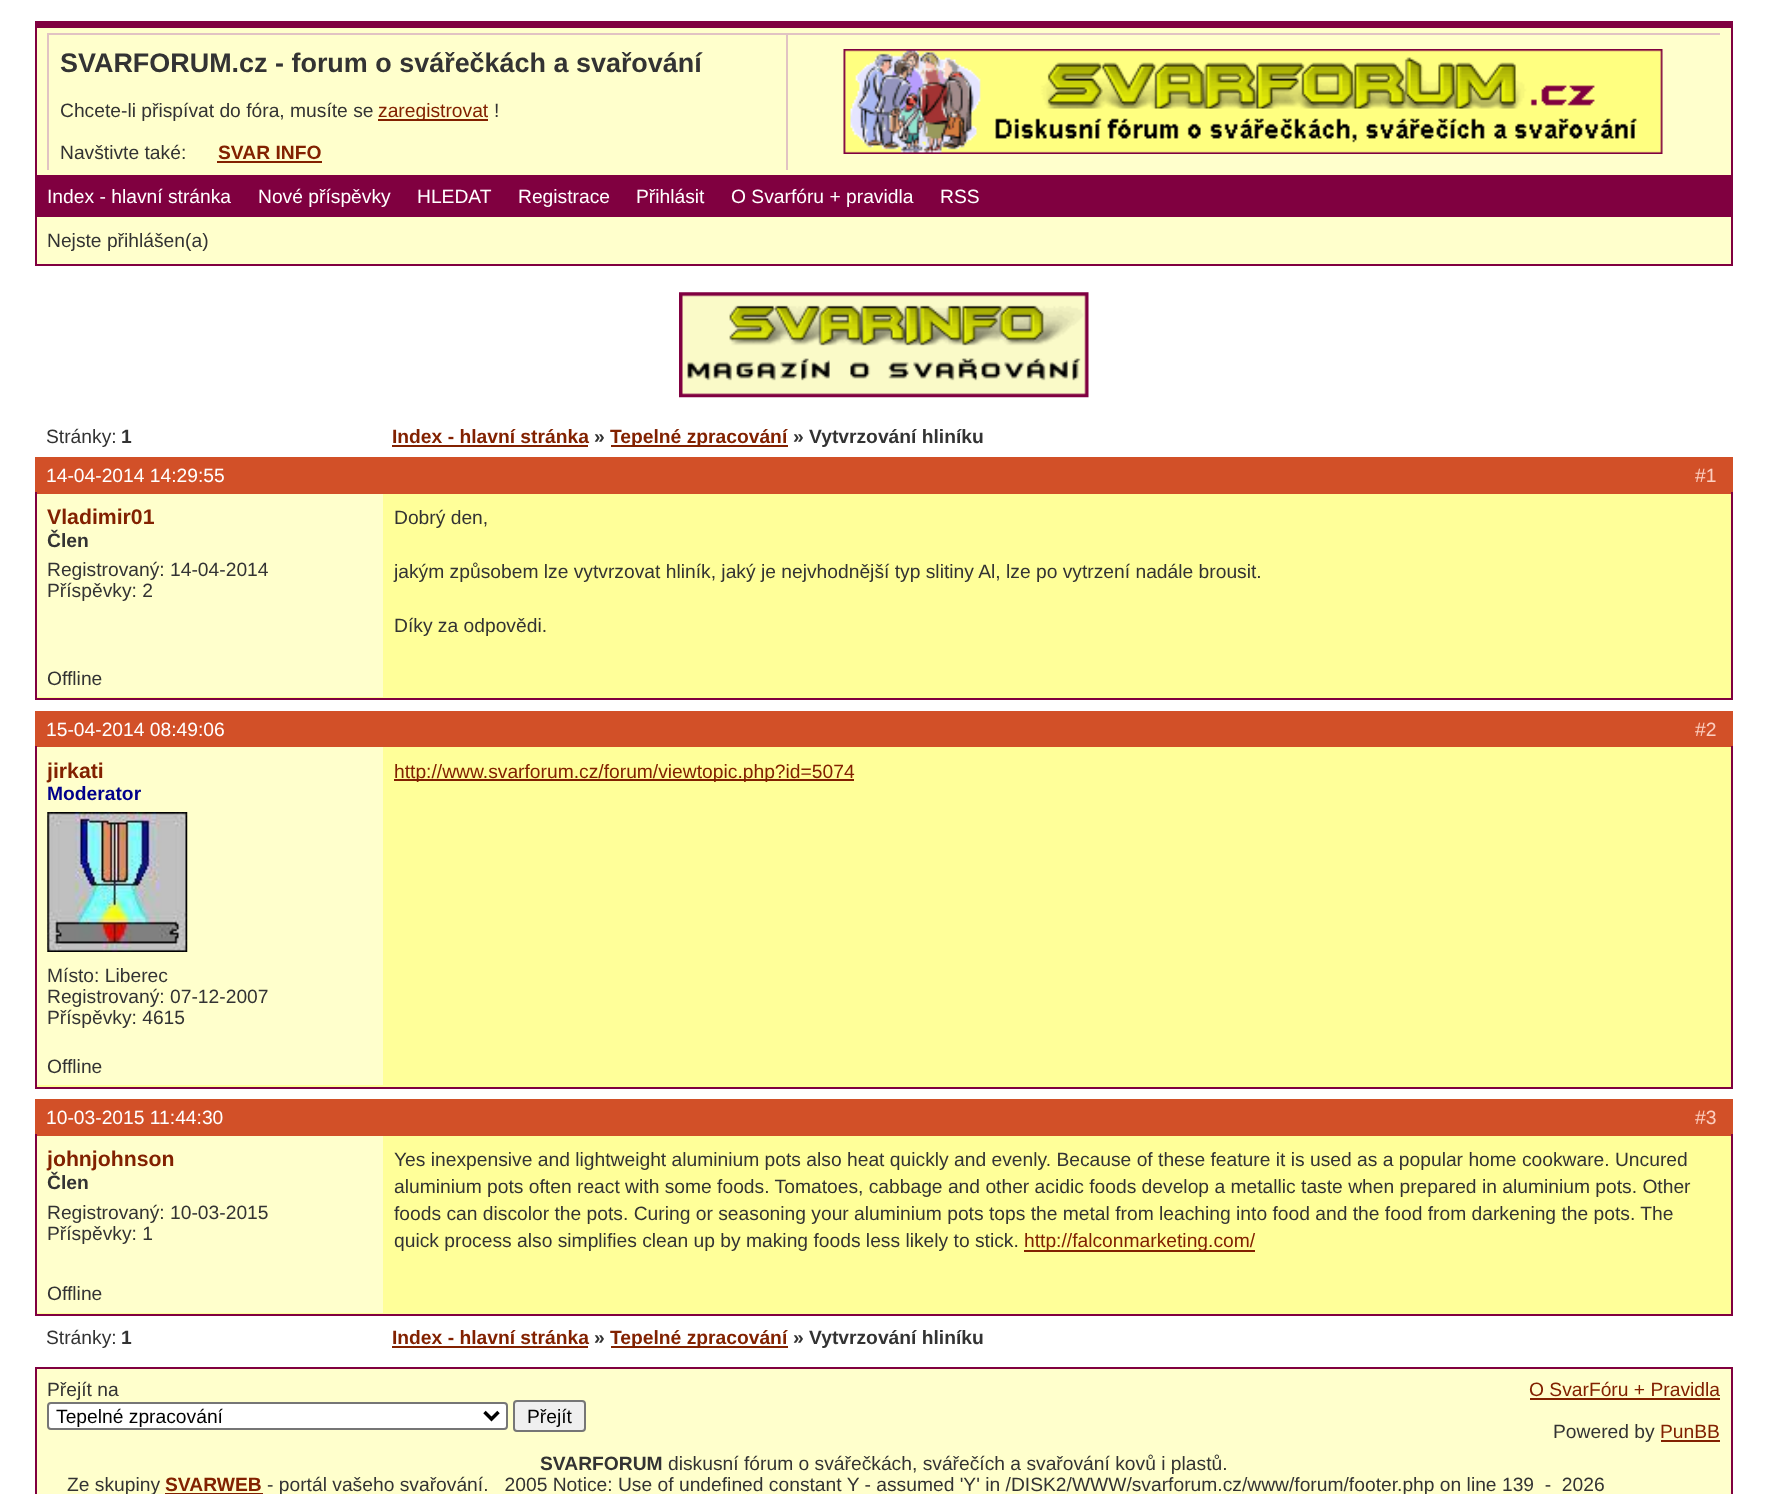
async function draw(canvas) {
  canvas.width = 1766
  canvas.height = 1494
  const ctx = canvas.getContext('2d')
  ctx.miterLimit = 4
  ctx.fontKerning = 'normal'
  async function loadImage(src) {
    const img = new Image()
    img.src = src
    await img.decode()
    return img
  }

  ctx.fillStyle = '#fff'
  ctx.fillRect(0, 0, 1766, 1494)
  ctx.fillStyle = '#ffc'
  ctx.fillRect(37, 28, 1694, 236)
  ctx.fillStyle = '#800040'
  ctx.fillRect(35, 21, 1698, 7)
  ctx.fillRect(1731, 21, 2, 245)
  ctx.fillRect(35, 264, 1698, 2)
  ctx.fillRect(35, 21, 2, 245)
  ctx.fillStyle = '#e1c3c3'
  ctx.fillRect(47, 33, 1673, 2)
  ctx.fillRect(47, 33, 2, 137)
  ctx.font = 'bold 26.95px Liberation Sans'
  ctx.fillStyle = '#333'
  ctx.fillText('SVARFORUM.cz - forum o svářečkách a svařování', 60, 72)
  ctx.font = '19.25px Liberation Sans'
  ctx.fillText('Chcete-li přispívat do fóra, musíte se', 60, 117)
  ctx.fillStyle = '#822100'
  ctx.fillRect(378, 119, 110, 2)
  ctx.fillText('zaregistrovat', 378, 117)
  ctx.fillStyle = '#333'
  ctx.fillText('!', 494, 117)
  ctx.fillText('Navštivte také:', 60, 159)
  ctx.font = 'bold 19.25px Liberation Sans'
  ctx.fillStyle = '#822100'
  ctx.fillText('SVAR INFO', 218, 159)
  ctx.fillRect(217, 161, 105, 2)
  ctx.fillStyle = '#e1c3c3'
  ctx.fillRect(786, 33, 2, 137)
  ctx.drawImage(await loadImage('image0.png'), 843, 49, 820, 105)
  ctx.fillStyle = '#800040'
  ctx.fillRect(37, 175, 1694, 42)
  ctx.font = '19.25px Liberation Sans'
  ctx.fillStyle = '#fff'
  ctx.fillText('Index - hlavní stránka', 47, 203)
  ctx.fillText('Nové příspěvky', 258, 203)
  ctx.fillText('HLEDAT', 417, 203)
  ctx.fillText('Registrace', 518, 203)
  ctx.fillText('Přihlásit', 636, 203)
  ctx.fillText('O Svarfóru + pravidla', 731, 203)
  ctx.fillText('RSS', 940, 203)
  ctx.fillStyle = '#333'
  ctx.fillText('Nejste přihlášen(a)', 47, 247)
  ctx.drawImage(await loadImage('image1.png'), 679, 292, 410, 106)
  ctx.fillText('Stránky:', 46, 443)
  ctx.font = 'bold 19.25px Liberation Sans'
  ctx.fillText('1', 121, 443)
  ctx.fillStyle = '#822100'
  ctx.fillText('Index - hlavní stránka', 392, 443)
  ctx.fillRect(392, 445, 196, 2)
  ctx.fillStyle = '#333'
  ctx.fillText('»', 594, 443)
  ctx.fillStyle = '#822100'
  ctx.fillRect(611, 445, 177, 2)
  ctx.fillText('Tepelné zpracování', 610, 443)
  ctx.fillStyle = '#333'
  ctx.fillText('» Vytvrzování hliníku', 793, 443)
  ctx.fillStyle = '#d25028'
  ctx.fillRect(35, 457, 1698, 37)
  ctx.font = '19.25px Liberation Sans'
  ctx.fillStyle = '#fff'
  ctx.fillText('14-04-2014 14:29:55', 46, 482)
  ctx.fillStyle = '#fccfc1'
  ctx.fillText('#1', 1695, 482)
  ctx.fillStyle = '#ff9'
  ctx.fillRect(37, 494, 1694, 204)
  ctx.fillStyle = '#800040'
  ctx.fillRect(1731, 492, 2, 208)
  ctx.fillRect(35, 698, 1698, 2)
  ctx.fillRect(35, 492, 2, 208)
  ctx.fillStyle = '#ffc'
  ctx.fillRect(37, 494, 346, 203)
  ctx.font = 'bold 21.25px Liberation Sans'
  ctx.fillStyle = '#822100'
  ctx.fillText('Vladimir01', 47, 524)
  ctx.font = 'bold 19.25px Liberation Sans'
  ctx.fillStyle = '#333'
  ctx.fillText('Člen', 47, 547)
  ctx.font = '19.25px Liberation Sans'
  ctx.fillText('Registrovaný: 14-04-2014', 47, 576)
  ctx.fillText('Příspěvky: 2', 47, 597)
  ctx.fillText('Dobrý den,', 394, 524)
  ctx.fillText('jakým způsobem lze vytvrzovat hliník, jaký je nejvhodnější typ slitiny Al, lze po vytrzení nadále brousit.', 394, 578)
  ctx.fillText('Díky za odpovědi.', 394, 632)
  ctx.fillText('Offline', 47, 685)
  ctx.fillStyle = '#d25028'
  ctx.fillRect(35, 711, 1698, 36)
  ctx.fillStyle = '#fff'
  ctx.fillText('15-04-2014 08:49:06', 46, 736)
  ctx.fillStyle = '#fccfc1'
  ctx.fillText('#2', 1695, 736)
  ctx.fillStyle = '#ff9'
  ctx.fillRect(37, 796, 1694, 291)
  ctx.fillStyle = '#800040'
  ctx.fillRect(1731, 746, 2, 343)
  ctx.fillRect(35, 1087, 1698, 2)
  ctx.fillRect(35, 746, 2, 343)
  ctx.fillStyle = '#ffc'
  ctx.fillRect(37, 747, 346, 338)
  ctx.font = 'bold 21.25px Liberation Sans'
  ctx.fillStyle = '#822100'
  ctx.fillText('jirkati', 47, 778)
  ctx.font = 'bold 19.25px Liberation Sans'
  ctx.fillStyle = '#00008b'
  ctx.fillText('Moderator', 47, 800)
  ctx.drawImage(await loadImage('image2.png'), 47, 812, 141, 140)
  ctx.font = '19.25px Liberation Sans'
  ctx.fillStyle = '#333'
  ctx.fillText('Místo: Liberec', 47, 982)
  ctx.fillText('Registrovaný: 07-12-2007', 47, 1003)
  ctx.fillText('Příspěvky: 4615', 47, 1024)
  ctx.fillStyle = '#ff9'
  ctx.fillRect(383, 747, 1348, 49)
  ctx.fillStyle = '#822100'
  ctx.fillRect(394, 779, 460, 2)
  ctx.fillText('http://www.svarforum.cz/forum/viewtopic.php?id=5074', 394, 778)
  ctx.fillStyle = '#333'
  ctx.fillText('Offline', 47, 1073)
  ctx.fillStyle = '#d25028'
  ctx.fillRect(35, 1099, 1698, 37)
  ctx.fillStyle = '#fff'
  ctx.fillText('10-03-2015 11:44:30', 46, 1124)
  ctx.fillStyle = '#fccfc1'
  ctx.fillText('#3', 1695, 1124)
  ctx.fillStyle = '#ff9'
  ctx.fillRect(37, 1136, 1694, 178)
  ctx.fillStyle = '#800040'
  ctx.fillRect(1731, 1134, 2, 182)
  ctx.fillRect(35, 1314, 1698, 2)
  ctx.fillRect(35, 1134, 2, 182)
  ctx.fillStyle = '#ffc'
  ctx.fillRect(37, 1136, 346, 177)
  ctx.font = 'bold 21.25px Liberation Sans'
  ctx.fillStyle = '#822100'
  ctx.fillText('johnjohnson', 47, 1166)
  ctx.font = 'bold 19.25px Liberation Sans'
  ctx.fillStyle = '#333'
  ctx.fillText('Člen', 47, 1189)
  ctx.font = '19.25px Liberation Sans'
  ctx.fillText('Registrovaný: 10-03-2015', 47, 1219)
  ctx.fillText('Příspěvky: 1', 47, 1240)
  ctx.fillText('Yes inexpensive and lightweight aluminium pots also heat quickly and evenly. Because of these feature it is used as a popular home cookware. Uncured', 394, 1166)
  ctx.fillText('aluminium pots often react with some foods. Tomatoes, cabbage and other acidic foods develop a metallic taste when prepared in aluminium pots. Other', 394, 1193)
  ctx.fillText('foods can discolor the pots. Curing or seasoning your aluminium pots tops the metal from leaching into food and the food from darkening the pots. The', 394, 1220)
  ctx.fillText('quick process also simplifies clean up by making foods less likely to stick.', 394, 1247)
  ctx.fillStyle = '#822100'
  ctx.fillRect(1024, 1250, 231, 2)
  ctx.fillText('http://falconmarketing.com/', 1024, 1247)
  ctx.fillStyle = '#333'
  ctx.fillText('Offline', 47, 1300)
  ctx.fillText('Stránky:', 46, 1344)
  ctx.font = 'bold 19.25px Liberation Sans'
  ctx.fillText('1', 121, 1344)
  ctx.fillStyle = '#822100'
  ctx.fillText('Index - hlavní stránka', 392, 1344)
  ctx.fillRect(392, 1346, 196, 2)
  ctx.fillStyle = '#333'
  ctx.fillText('»', 594, 1344)
  ctx.fillStyle = '#822100'
  ctx.fillRect(611, 1346, 177, 2)
  ctx.fillText('Tepelné zpracování', 610, 1344)
  ctx.fillStyle = '#333'
  ctx.fillText('» Vytvrzování hliníku', 793, 1344)
  ctx.fillStyle = '#ffc'
  ctx.beginPath()
  ctx.rect(36, 1368, 1696, 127)
  ctx.fill()
  ctx.strokeStyle = '#800040'
  ctx.lineWidth = 2
  ctx.stroke()
  ctx.font = '19.25px Liberation Sans'
  ctx.fillStyle = '#333'
  ctx.fillText('Přejít na', 47, 1396)
  ctx.fillStyle = '#fff'
  ctx.beginPath()
  ctx.roundRect(48, 1403, 459, 26, 3)
  ctx.fill()
  ctx.strokeStyle = '#767676'
  ctx.stroke()
  ctx.beginPath()
  ctx.moveTo(484.5, 1412)
  ctx.lineTo(491.5, 1419)
  ctx.lineTo(498.5, 1412)
  ctx.strokeStyle = '#000'
  ctx.lineWidth = 3.5
  ctx.stroke()
  ctx.fillStyle = '#000'
  ctx.fillText('Tepelné zpracování', 56, 1423)
  ctx.fillStyle = '#efefef'
  ctx.beginPath()
  ctx.roundRect(514, 1401, 71, 30, 3)
  ctx.fill()
  ctx.strokeStyle = '#767676'
  ctx.lineWidth = 2
  ctx.stroke()
  ctx.fillStyle = '#000'
  ctx.fillText('Přejít', 527, 1423)
  ctx.fillStyle = '#822100'
  ctx.fillText('O SvarFóru + Pravidla', 1529, 1396)
  ctx.fillRect(1530, 1398, 190, 2)
  ctx.fillStyle = '#333'
  ctx.fillText('Powered by', 1553, 1438)
  ctx.fillStyle = '#822100'
  ctx.fillText('PunBB', 1660, 1438)
  ctx.fillRect(1661, 1440, 59, 2)
  ctx.font = 'bold 19.25px Liberation Sans'
  ctx.fillStyle = '#333'
  ctx.fillText('SVARFORUM', 540, 1470)
  ctx.font = '19.25px Liberation Sans'
  ctx.fillText('diskusní fórum o svářečkách, svářečích a svařování kovů i plastů.', 668, 1470)
  ctx.fillText('Ze skupiny', 67, 1491)
  ctx.font = 'bold 19.25px Liberation Sans'
  ctx.fillStyle = '#822100'
  ctx.fillText('SVARWEB', 165, 1491)
  ctx.fillRect(165, 1493, 98, 1)
  ctx.font = '19.25px Liberation Sans'
  ctx.fillStyle = '#333'
  ctx.fillText('- portál vašeho svařování.   2005 Notice: Use of undefined constant Y - assumed \'Y\' in /DISK2/WWW/svarforum.cz/www/forum/footer.php on line 139  -  2026', 267, 1491)
}

draw(document.querySelector('canvas'))
